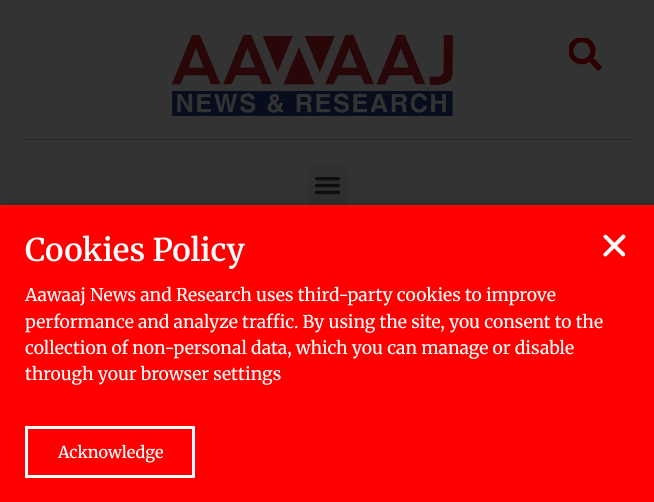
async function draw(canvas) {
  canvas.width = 654
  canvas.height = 502
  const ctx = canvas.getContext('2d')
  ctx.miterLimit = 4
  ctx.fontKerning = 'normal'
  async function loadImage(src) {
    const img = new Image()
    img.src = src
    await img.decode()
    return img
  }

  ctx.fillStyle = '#333'
  ctx.fillRect(0, 0, 654, 502)
  ctx.fillStyle = '#252525'
  ctx.fillRect(25, 139, 605, 1)
  ctx.drawImage(await loadImage('image0.png'), 171, 34, 283, 82)
  ctx.drawImage(await loadImage('image1.png'), 569, 38, 33, 33)
  ctx.fillStyle = '#303030'
  ctx.beginPath()
  ctx.roundRect(308, 165, 41, 41, 4)
  ctx.fill()
  ctx.drawImage(await loadImage('image2.png'), 314, 177, 27, 18)
  ctx.fillStyle = '#00000033'
  ctx.filter = 'blur(14.5px)'
  ctx.beginPath()
  ctx.rect(-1, 211, 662, 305)
  ctx.fill()
  ctx.filter = 'none'
  ctx.fillStyle = '#f00'
  ctx.fillRect(0, 205, 654, 297)
  ctx.font = '600 31.25px Merriweather'
  ctx.fillStyle = '#fff'
  ctx.fillText('Cookies Policy', 25, 261)
  ctx.font = '17.5px Merriweather'
  ctx.fillText('Aawaaj News and Research uses third-party cookies to improve', 25, 301)
  ctx.fillText('performance and analyze traffic. By using the site, you consent to the', 25, 328)
  ctx.fillText('collection of non-personal data, which you can manage or disable', 25, 354)
  ctx.fillText('through your browser settings', 25, 380)
  ctx.strokeStyle = '#fff'
  ctx.lineWidth = 3
  ctx.strokeRect(26.5, 427.5, 167, 49)
  ctx.font = '500 16.25px Merriweather'
  ctx.fillText('Acknowledge', 58, 458)
  ctx.drawImage(await loadImage('image3.png'), 603, 234, 23, 23)
}

draw(document.querySelector('canvas'))
